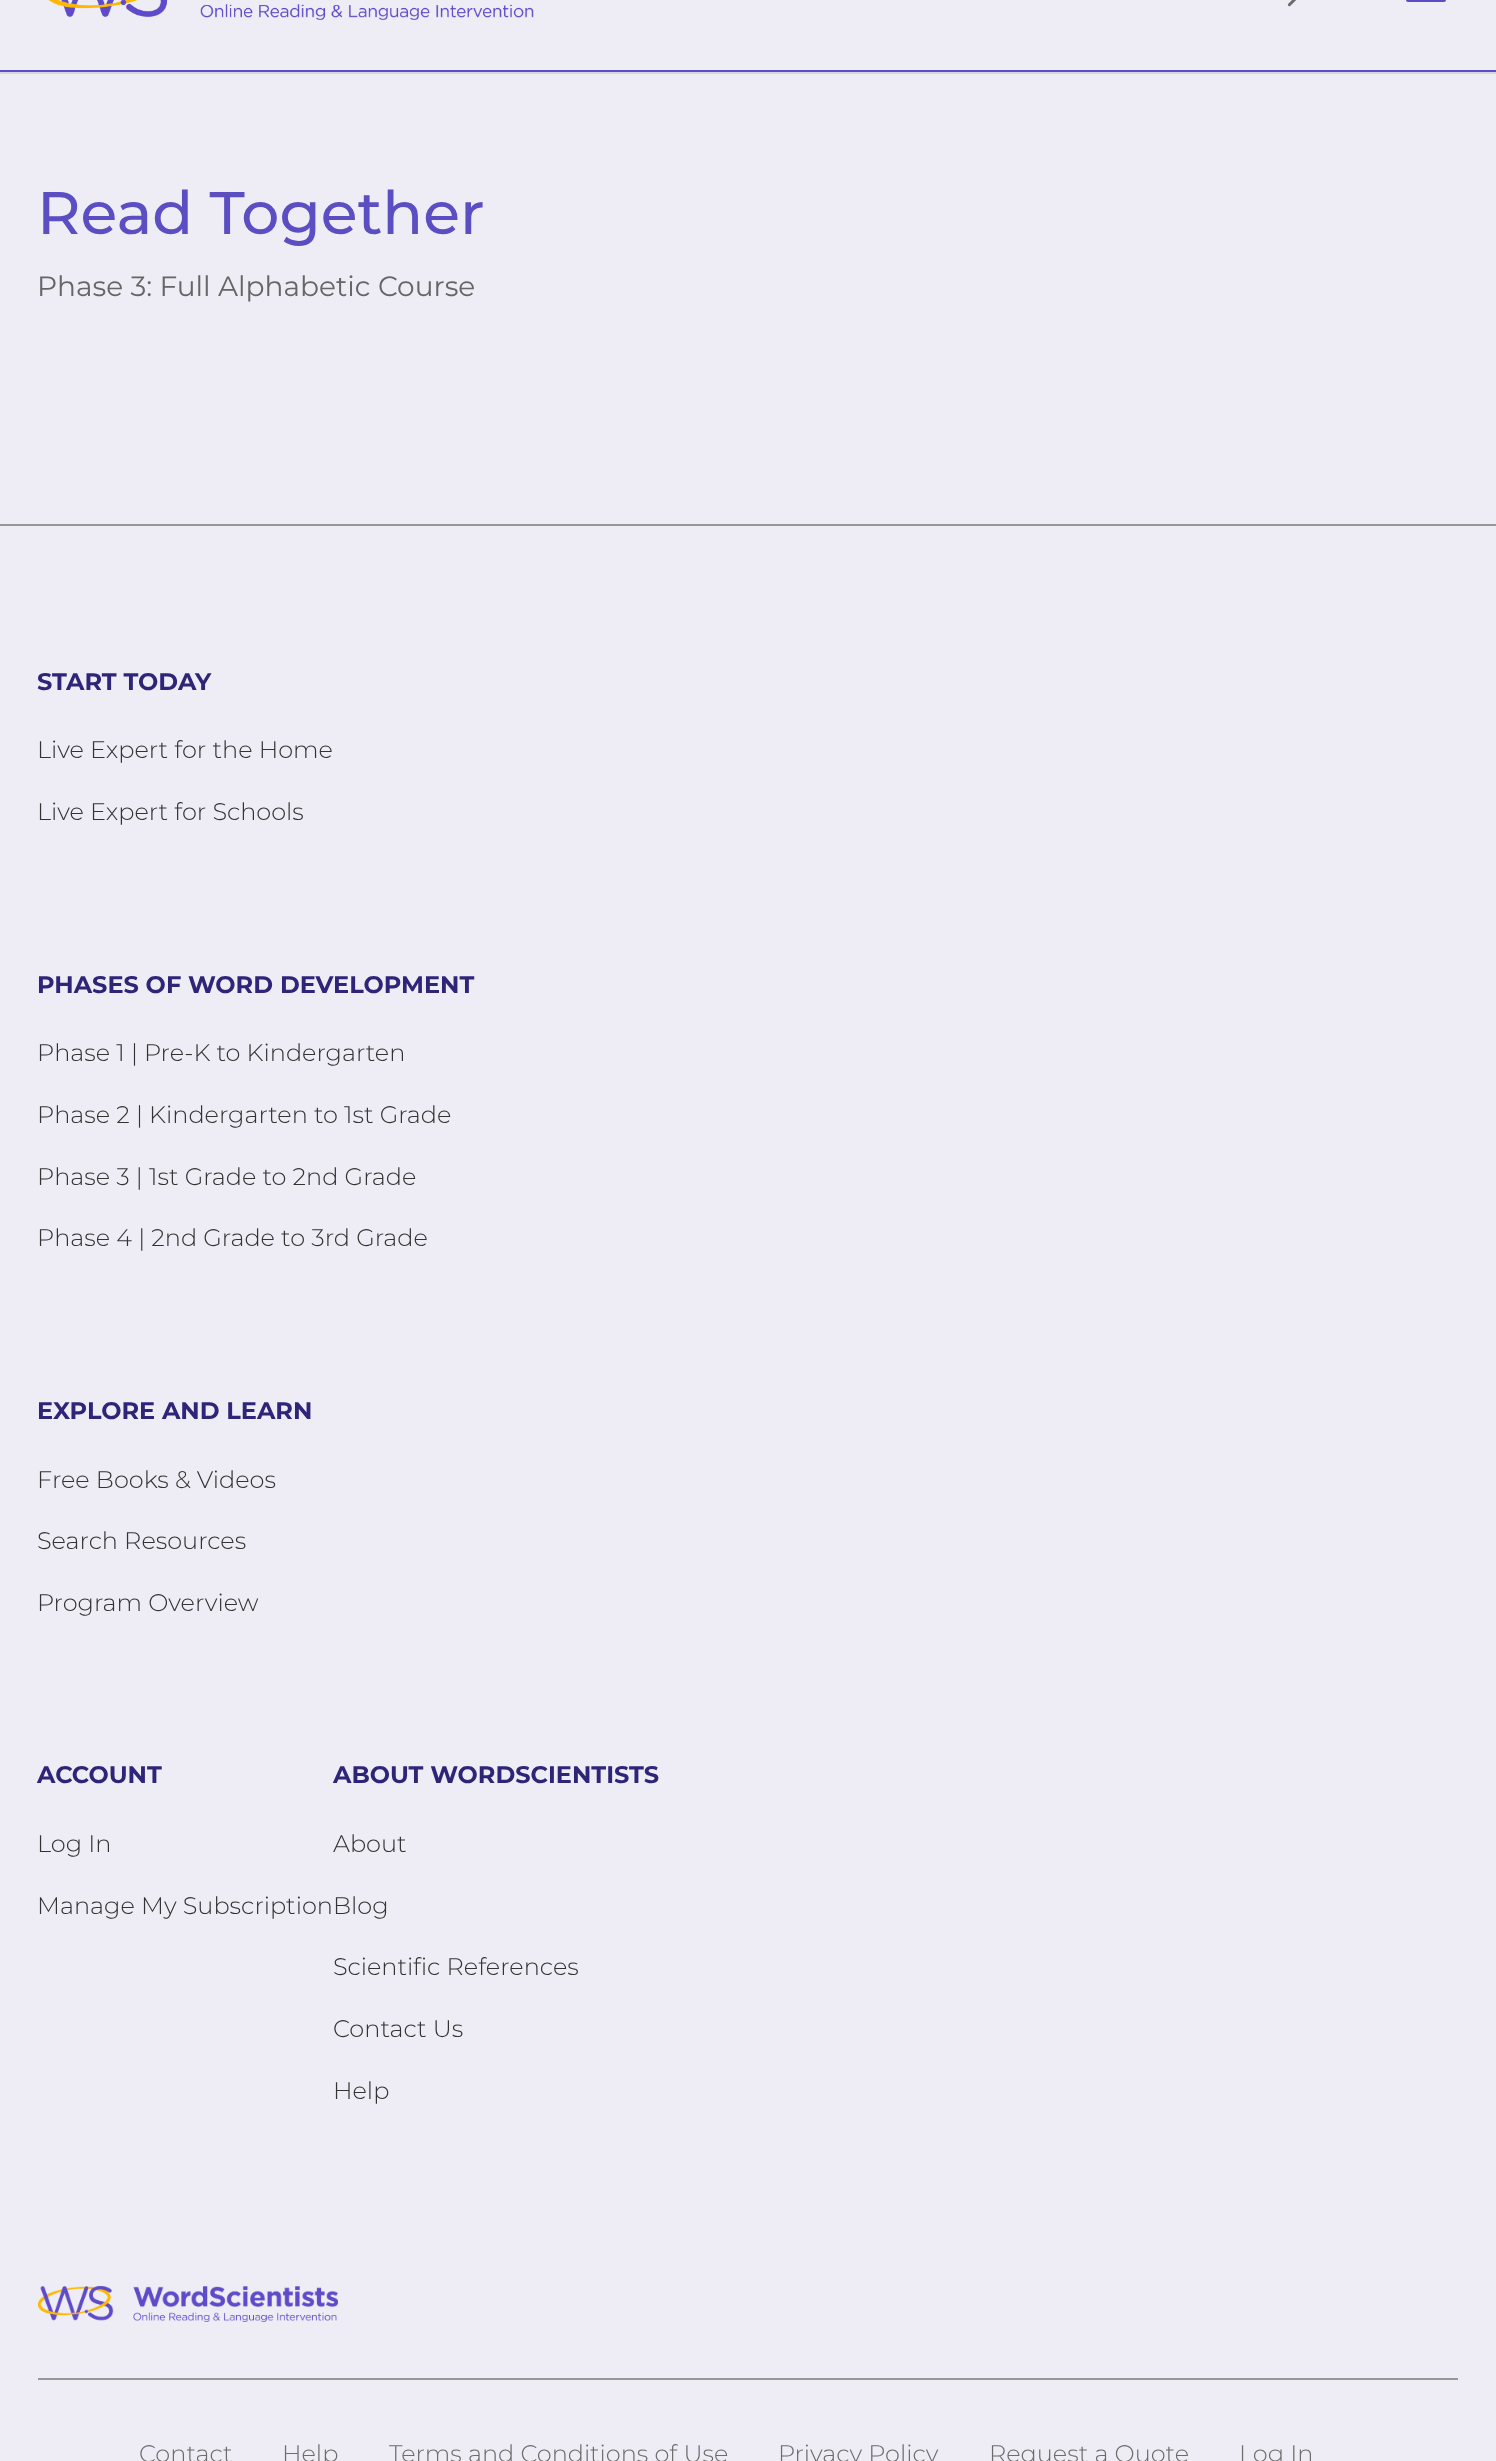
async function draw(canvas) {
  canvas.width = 1496
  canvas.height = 2461
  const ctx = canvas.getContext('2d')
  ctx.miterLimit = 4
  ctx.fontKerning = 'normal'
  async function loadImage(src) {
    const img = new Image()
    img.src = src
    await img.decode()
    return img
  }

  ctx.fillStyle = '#eeedf5'
  ctx.fillRect(0, 0, 1496, 2461)
  ctx.fillStyle = '#d6d5dd'
  ctx.fillRect(0, 72, 1496, 2)
  ctx.fillStyle = '#5b4ec4'
  ctx.fillRect(0, 70, 1496, 2)
  ctx.drawImage(await loadImage('image0.png'), 48, 0, 486, 20)
  ctx.drawImage(await loadImage('image1.png'), 1287, 0, 9, 7)
  ctx.drawImage(await loadImage('image2.png'), 1406, 0, 40, 2)
  ctx.font = '500 60px Montserrat'
  ctx.fillStyle = '#5b4ec3'
  ctx.fillText('Read Together', 37, 234)
  ctx.font = '28px Montserrat'
  ctx.fillStyle = '#666'
  ctx.fillText('Phase 3: Full Alphabetic Course', 37, 296)
  ctx.fillStyle = '#979797'
  ctx.fillRect(0, 524, 1496, 2)
  ctx.font = 'bold 24px Montserrat'
  ctx.fillStyle = '#2e2478'
  ctx.fillText('START TODAY', 37, 690)
  ctx.font = '300 24px Montserrat'
  ctx.fillStyle = '#333'
  ctx.fillText('Live Expert for the Home', 37, 758)
  ctx.fillText('Live Expert for Schools', 37, 820)
  ctx.font = 'bold 24px Montserrat'
  ctx.fillStyle = '#2e2478'
  ctx.fillText('PHASES OF WORD DEVELOPMENT', 37, 993)
  ctx.font = '300 24px Montserrat'
  ctx.fillStyle = '#333'
  ctx.fillText('Phase 1 | Pre-K to Kindergarten', 37, 1061)
  ctx.fillText('Phase 2 | Kindergarten to 1st Grade', 37, 1123)
  ctx.fillText('Phase 3 | 1st Grade to 2nd Grade', 37, 1185)
  ctx.fillText('Phase 4 | 2nd Grade to 3rd Grade', 37, 1246)
  ctx.font = 'bold 24px Montserrat'
  ctx.fillStyle = '#2e2478'
  ctx.fillText('EXPLORE AND LEARN', 37, 1419)
  ctx.font = '300 24px Montserrat'
  ctx.fillStyle = '#333'
  ctx.fillText('Free Books & Videos', 37, 1488)
  ctx.fillText('Search Resources', 37, 1549)
  ctx.fillText('Program Overview', 37, 1611)
  ctx.font = 'bold 24px Montserrat'
  ctx.fillStyle = '#2e2478'
  ctx.fillText('ACCOUNT', 37, 1783)
  ctx.font = '300 24px Montserrat'
  ctx.fillStyle = '#333'
  ctx.fillText('Log In', 37, 1852)
  ctx.fillText('Manage My SubscriptionBlog', 37, 1914)
  ctx.font = 'bold 24px Montserrat'
  ctx.fillStyle = '#2e2478'
  ctx.fillText('ABOUT WORDSCIENTISTS', 333, 1783)
  ctx.font = '300 24px Montserrat'
  ctx.fillStyle = '#333'
  ctx.fillText('About', 333, 1852)
  ctx.fillText('Scientific References', 333, 1975)
  ctx.fillText('Contact Us', 333, 2037)
  ctx.fillText('Help', 333, 2099)
  ctx.fillStyle = '#979797'
  ctx.fillRect(38, 2378, 1420, 2)
  ctx.drawImage(await loadImage('image3.png'), 38, 2286, 300, 36)
  ctx.fillStyle = '#6c6c6c'
  ctx.fillText('Contact', 139, 2462)
  ctx.fillText('Help', 282, 2462)
  ctx.fillText('Terms and Conditions of Use', 389, 2462)
  ctx.fillText('Privacy Policy', 778, 2462)
  ctx.fillText('Request a Quote', 989, 2462)
  ctx.fillText('Log In', 1239, 2462)
}

draw(document.querySelector('canvas'))
